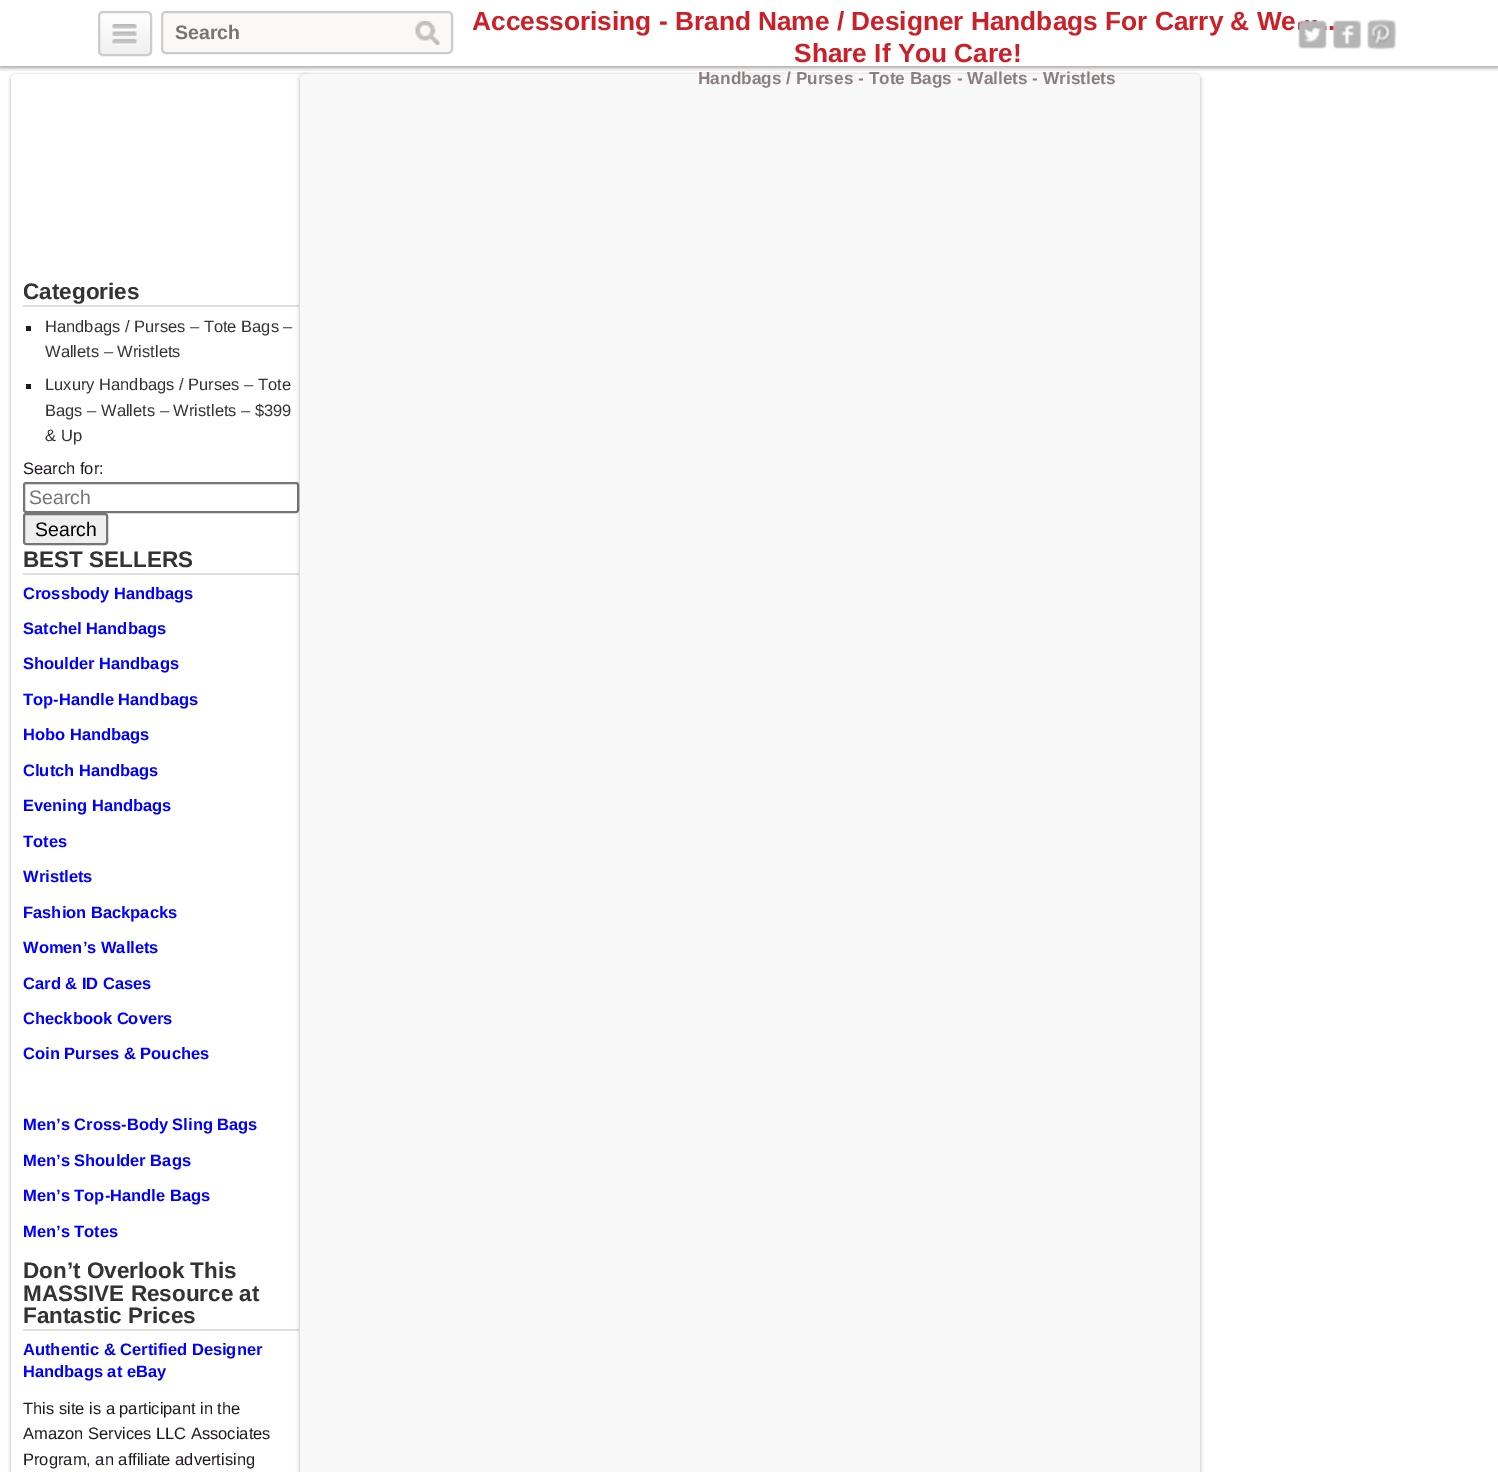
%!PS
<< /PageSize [1498 1472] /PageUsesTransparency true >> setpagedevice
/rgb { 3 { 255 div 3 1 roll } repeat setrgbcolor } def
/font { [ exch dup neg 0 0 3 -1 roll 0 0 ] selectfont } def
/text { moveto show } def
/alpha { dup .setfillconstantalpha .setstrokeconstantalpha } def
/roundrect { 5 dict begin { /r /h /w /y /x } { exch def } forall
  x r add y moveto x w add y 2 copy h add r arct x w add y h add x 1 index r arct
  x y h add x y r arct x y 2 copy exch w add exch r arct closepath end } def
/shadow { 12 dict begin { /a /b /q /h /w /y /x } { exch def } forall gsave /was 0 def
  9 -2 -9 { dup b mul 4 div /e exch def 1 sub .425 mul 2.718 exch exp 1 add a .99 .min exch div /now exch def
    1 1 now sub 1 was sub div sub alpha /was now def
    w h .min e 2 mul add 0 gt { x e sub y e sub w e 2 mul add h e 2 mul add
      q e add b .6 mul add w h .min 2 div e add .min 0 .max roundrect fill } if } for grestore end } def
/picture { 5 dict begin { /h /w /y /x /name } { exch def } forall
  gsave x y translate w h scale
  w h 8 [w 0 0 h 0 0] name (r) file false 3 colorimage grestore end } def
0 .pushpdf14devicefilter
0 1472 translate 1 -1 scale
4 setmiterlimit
255 255 255 rgb
0 0 1498 1472 rectfill
34 25 25 rgb
11 75 300 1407 5 1.5 0.4 shadow
255 255 255 rgb
11 74 300 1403 5 roundrect fill
225 223 223 rgb
23 305 276 2 rectfill
118 118 118 rgb
2 setlinewidth
24 483 274 29 2 roundrect stroke
225 223 223 rgb
23 573 276 2 rectfill
23 1329 276 2 rectfill
0 0 0 rgb
300 75 900 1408 5 2 0.33 shadow
248 248 248 rgb
300 74 900 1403 5 roundrect fill
gsave
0 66 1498 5 rectclip
34 25 25 rgb
0 2 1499 66 0 2 0.4 shadow
grestore
gsave
98 11 54 45 5 roundrect clip newpath
gsave 98 12 moveto 54 0 rlineto 0 42 rlineto -54 0 rlineto closepath clip newpath
<< /ShadingType 2 /ColorSpace /DeviceRGB /Coords [125 12 125 54] /Extend [true true] /Function << /FunctionType 2 /Domain [0 1] /C0 [1 1 1] /C1 [0.941 0.941 0.941] /N 1 >> >> shfill grestore
grestore
204 204 204 rgb
99 12 52 43 4 roundrect stroke
(img_01.rgb) 112 24 25 21 picture
250 249 247 rgb
162 12 290 41 4 roundrect gsave fill grestore
204 204 204 rgb
stroke
(img_02.rgb) 415 21 25 24 picture
(img_03.rgb) 1298 20 29 29 picture
(img_05.rgb) 1367 19 30 31 picture
33 25 34 rgb
26 326 5 5 rectfill
26 384 5 5 rectfill
239 239 239 rgb
24 514 83 30 2 roundrect gsave fill grestore
118 118 118 rgb
stroke
/LiberationSans-Bold 19.5 font
117 117 117 rgb
(Search) 175 39 text
/LiberationSans-Bold 26.25 font
203 32 39 rgb
(Accessorising - Brand Name / Designer Handbags For Carry & We) 472 30 text
(.) 1328 30 text
(Share If You Care!) 794 62 text
/LiberationSans-Bold 17.25 font
140 126 126 rgb
(Handbags / Purses - Tote Bags - Wallets - Wristlets) 698 84 text
(img_04.rgb) 1332 20 30 29 picture
/LiberationSans-Bold 22.5 font
51 51 51 rgb
(Categories) 23 299 text
/LiberationSans-Regular 16.5 font
(Handbags / Purses – Tote Bags –) 45 332 text
(Wallets – Wristlets) 45 357 text
(Luxury Handbags / Purses – Tote) 45 390 text
(Bags – Wallets – Wristlets – $399) 45 416 text
(& Up) 45 441 text
33 25 34 rgb
(Search for:) 23 474 text
/LiberationSans-Regular 19.5 font
117 117 117 rgb
(Search) 29 504 text
0 0 0 rgb
(Search) 35 536 text
/LiberationSans-Bold 22.5 font
51 51 51 rgb
(BEST SELLERS) 23 567 text
/LiberationSans-Bold 16.5 font
0 0 255 rgb
(Crossbody Handbags) 23 599 text
(Satchel Handbags) 23 634 text
(Shoulder Handbags) 23 669 text
(Top-Handle Handbags) 23 705 text
(Hobo Handbags) 23 740 text
(Clutch Handbags) 23 776 text
(Evening Handbags) 23 811 text
(Totes) 23 847 text
(Wristlets) 23 882 text
(Fashion Backpacks) 23 918 text
(Women’s Wallets) 23 953 text
(Card & ID Cases) 23 989 text
(Checkbook Covers) 23 1024 text
(Coin Purses & Pouches) 23 1059 text
(Men’s Cross-Body Sling Bags) 23 1130 text
(Men’s Shoulder Bags) 23 1166 text
(Men’s Top-Handle Bags) 23 1201 text
(Men’s Totes) 23 1237 text
/LiberationSans-Bold 22.5 font
51 51 51 rgb
(Don’t Overlook This) 23 1278 text
(MASSIVE Resource at) 23 1301 text
(Fantastic Prices) 23 1323 text
/LiberationSans-Bold 16.5 font
0 0 255 rgb
(Authentic & Certified Designer) 23 1355 text
(Handbags at eBay) 23 1377 text
/LiberationSans-Regular 16.5 font
33 25 34 rgb
(This site is a participant in the) 23 1414 text
(Amazon Services LLC Associates) 23 1439 text
(Program, an affiliate advertising) 23 1465 text
.poppdf14devicefilter showpage
